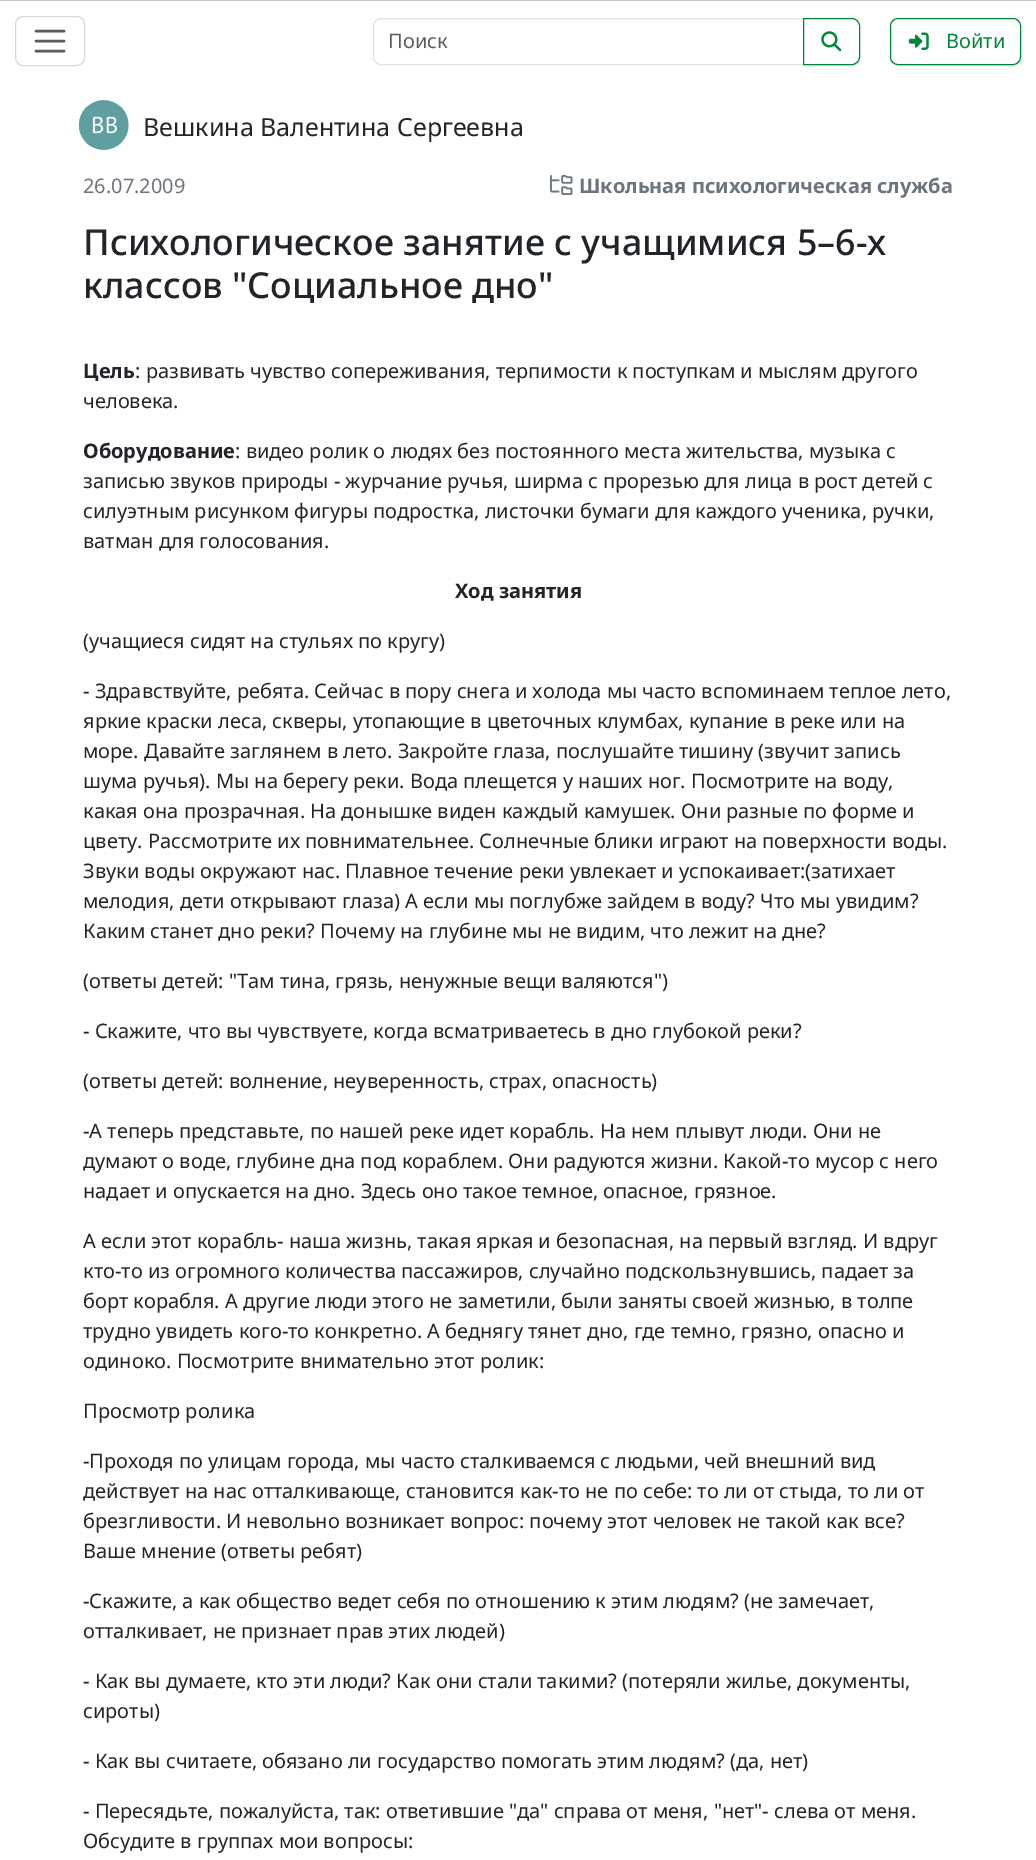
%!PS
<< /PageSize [1036 1860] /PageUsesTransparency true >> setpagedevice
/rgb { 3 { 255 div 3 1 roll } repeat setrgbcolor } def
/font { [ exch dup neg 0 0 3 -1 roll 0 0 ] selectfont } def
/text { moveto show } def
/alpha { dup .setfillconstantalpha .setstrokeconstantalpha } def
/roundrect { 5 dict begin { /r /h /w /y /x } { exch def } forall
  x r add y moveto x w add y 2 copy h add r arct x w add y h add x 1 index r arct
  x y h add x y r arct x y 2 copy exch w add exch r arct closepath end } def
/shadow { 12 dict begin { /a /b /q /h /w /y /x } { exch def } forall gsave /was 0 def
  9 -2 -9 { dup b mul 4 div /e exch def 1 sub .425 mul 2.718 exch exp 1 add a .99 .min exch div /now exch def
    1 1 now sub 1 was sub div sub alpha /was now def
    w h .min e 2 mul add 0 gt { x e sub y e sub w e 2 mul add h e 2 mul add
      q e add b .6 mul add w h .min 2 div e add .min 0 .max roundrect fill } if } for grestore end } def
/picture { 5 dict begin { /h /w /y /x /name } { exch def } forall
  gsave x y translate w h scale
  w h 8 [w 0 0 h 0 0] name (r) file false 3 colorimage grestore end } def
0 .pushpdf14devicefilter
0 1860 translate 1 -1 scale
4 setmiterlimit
255 255 255 rgb
0 0 1036 1860 rectfill
200 201 202 rgb
0 0 1036 1 rectfill
217 217 217 rgb
15.5 16.5 69 49 7.5 roundrect stroke
89 92 95 rgb
2.5 setlinewidth
1 setlinecap
36 31 moveto 28 0 rlineto 36 41 moveto 28 0 rlineto 36 51 moveto 28 0 rlineto stroke
222 226 230 rgb
1 setlinewidth
0 setlinecap
381 18.5 moveto 422.5 0 rlineto 0 46 rlineto -422.5 0 rlineto -4 0 -7.5 -3.5 -7.5 -7.5 rcurveto 0 -31 rlineto 0 -4 3.5 -7.5 7.5 -7.5 rcurveto closepath stroke
gsave
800 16 moveto 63 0 rlineto 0 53 rlineto -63 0 rlineto closepath 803 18 moveto 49 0 rlineto 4.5 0 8 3.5 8 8 rcurveto 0 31 rlineto 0 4.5 -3.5 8 -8 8 rcurveto -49 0 rlineto closepath eoclip newpath
0 0 0 rgb
803 19 57 47 8 0.5 0.07 shadow
grestore
0 135 56 rgb
803.5 18.5 moveto 48.5 0 rlineto 4 0 7.5 3.5 7.5 7.5 rcurveto 0 31 rlineto 0 4 -3.5 7.5 -7.5 7.5 rcurveto -48.5 0 rlineto closepath stroke
(img_01.rgb) 821 31 21 21 picture
gsave
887 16 moveto 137 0 rlineto 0 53 rlineto -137 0 rlineto closepath 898 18 moveto 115 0 rlineto 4.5 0 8 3.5 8 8 rcurveto 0 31 rlineto 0 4.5 -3.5 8 -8 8 rcurveto -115 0 rlineto -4.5 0 -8 -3.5 -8 -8 rcurveto 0 -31 rlineto 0 -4.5 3.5 -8 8 -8 rcurveto closepath eoclip newpath
0 0 0 rgb
890 19 131 47 8 0.5 0.07 shadow
grestore
890.5 18.5 130 46 7.5 roundrect stroke
(img_02.rgb) 908 32 21 18 picture
(img_03.rgb) 78 100 51 50 picture
(img_04.rgb) 550 175 23 20 picture
/NotoSans-Regular 20 font
89 92 95 rgb
(Поиск) 388 48 text
0 135 56 rgb
(Войти) 946 48 text
/NotoSans-Regular 25 font
33 37 41 rgb
(Вешкина Валентина Сергеевна) 143 136 text
/NotoSans-Regular 20 font
108 117 125 rgb
(26.07.2009) 83 193 text
/NotoSans-Bold 20 font
(Школьная психологическая служба) 579 193 text
/NotoSans-Medium 35.8 font
33 37 41 rgb
(Психологическое занятие с учащимися 5–6-х) 83 255 text
(классов "Социальное дно") 83 298 text
/NotoSans-Bold 20 font
(Цель) 83 378 text
/NotoSans-Regular 20 font
(: развивать чувство сопереживания, терпимости к поступкам и мыслям другого) 135 378 text
(человека.) 83 408 text
/NotoSans-Bold 20 font
(Оборудование) 83 458 text
/NotoSans-Regular 20 font
(: видео ролик о людях без постоянного места жительства, музыка с) 235 458 text
(записью звуков природы - журчание ручья, ширма с прорезью для лица в рост детей с) 83 488 text
(силуэтным рисунком фигуры подростка, листочки бумаги для каждого ученика, ручки,) 83 518 text
(ватман для голосования.) 83 548 text
/NotoSans-Bold 20 font
(Ход занятия) 455 598 text
/NotoSans-Regular 20 font
(\(учащиеся сидят на стульях по кругу\)) 83 648 text
(- Здравствуйте, ребята. Сейчас в пору снега и холода мы часто вспоминаем теплое лето,) 83 698 text
(яркие краски леса, скверы, утопающие в цветочных клумбах, купание в реке или на) 83 728 text
(море. Давайте заглянем в лето. Закройте глаза, послушайте тишину \(звучит запись) 83 758 text
(шума ручья\). Мы на берегу реки. Вода плещется у наших ног. Посмотрите на воду,) 83 788 text
(какая она прозрачная. На донышке виден каждый камушек. Они разные по форме и) 83 818 text
(цвету. Рассмотрите их повнимательнее. Солнечные блики играют на поверхности воды.) 83 848 text
(Звуки воды окружают нас. Плавное течение реки увлекает и успокаивает:\(затихает) 83 878 text
(мелодия, дети открывают глаза\) А если мы поглубже зайдем в воду? Что мы увидим?) 83 908 text
(Каким станет дно реки? Почему на глубине мы не видим, что лежит на дне?) 83 938 text
(\(ответы детей: "Там тина, грязь, ненужные вещи валяются"\)) 83 988 text
(- Скажите, что вы чувствуете, когда всматриваетесь в дно глубокой реки?) 83 1038 text
(\(ответы детей: волнение, неуверенность, страх, опасность\)) 83 1088 text
(-А теперь представьте, по нашей реке идет корабль. На нем плывут люди. Они не) 83 1138 text
(думают о воде, глубине дна под кораблем. Они радуются жизни. Какой-то мусор с него) 83 1168 text
(надает и опускается на дно. Здесь оно такое темное, опасное, грязное.) 83 1198 text
(А если этот корабль- наша жизнь, такая яркая и безопасная, на первый взгляд. И вдруг) 83 1248 text
(кто-то из огромного количества пассажиров, случайно подскользнувшись, падает за) 83 1278 text
(борт корабля. А другие люди этого не заметили, были заняты своей жизнью, в толпе) 83 1308 text
(трудно увидеть кого-то конкретно. А беднягу тянет дно, где темно, грязно, опасно и) 83 1338 text
(одиноко. Посмотрите внимательно этот ролик:) 83 1368 text
(Просмотр ролика) 83 1418 text
(-Проходя по улицам города, мы часто сталкиваемся с людьми, чей внешний вид) 83 1468 text
(действует на нас отталкивающе, становится как-то не по себе: то ли от стыда, то ли от) 83 1498 text
(брезгливости. И невольно возникает вопрос: почему этот человек не такой как все?) 83 1528 text
(Ваше мнение \(ответы ребят\)) 83 1558 text
(-Скажите, а как общество ведет себя по отношению к этим людям? \(не замечает,) 83 1608 text
(отталкивает, не признает прав этих людей\)) 83 1638 text
(- Как вы думаете, кто эти люди? Как они стали такими? \(потеряли жилье, документы,) 83 1688 text
(сироты\)) 83 1718 text
(- Как вы считаете, обязано ли государство помогать этим людям? \(да, нет\)) 83 1768 text
(- Пересядьте, пожалуйста, так: ответившие "да" справа от меня, "нет"- слева от меня.) 83 1818 text
(Обсудите в группах мои вопросы:) 83 1848 text
.poppdf14devicefilter showpage
